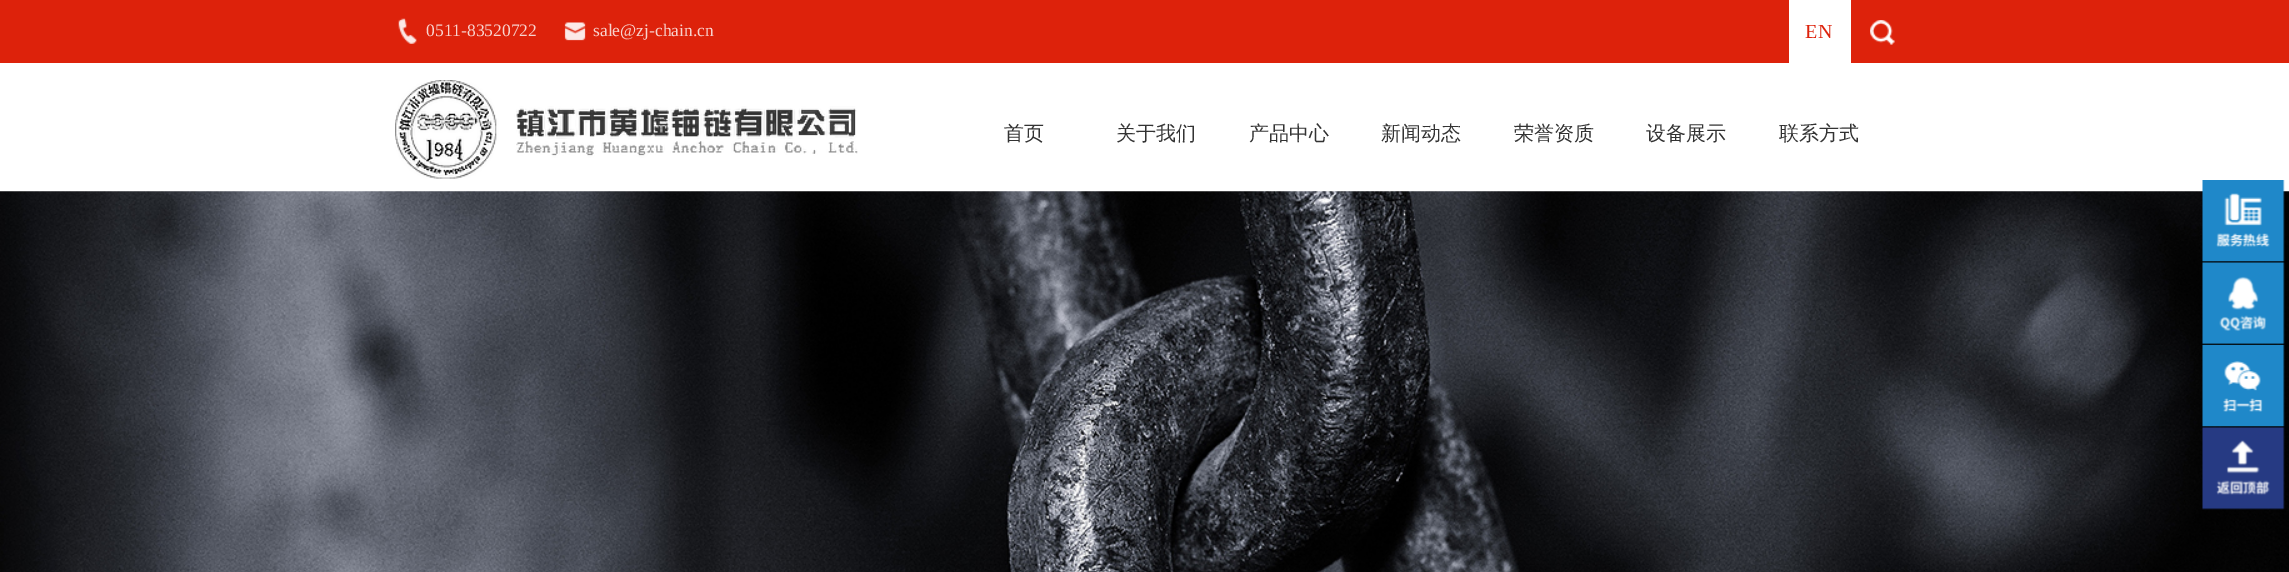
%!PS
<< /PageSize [2289 572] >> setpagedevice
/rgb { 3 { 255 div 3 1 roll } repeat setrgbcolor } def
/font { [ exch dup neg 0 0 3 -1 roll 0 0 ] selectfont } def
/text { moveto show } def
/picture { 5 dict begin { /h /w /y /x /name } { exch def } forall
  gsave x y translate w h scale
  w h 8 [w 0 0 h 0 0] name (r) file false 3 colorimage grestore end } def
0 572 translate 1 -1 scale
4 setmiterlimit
255 255 255 rgb
0 0 2289 572 rectfill
221 34 11 rgb
0 0 2289 63 rectfill
(img_01.rgb) 398 18 19 26 picture
(img_02.rgb) 564 22 22 19 picture
255 255 255 rgb
1789 0 62 63 rectfill
(img_03.rgb) 1870 20 25 25 picture
(img_04.rgb) 395 80 463 99 picture
(img_09.rgb) 0 191 2289 381 picture
(img_05.rgb) 2202 180 83 82 picture
(img_06.rgb) 2202 262 83 83 picture
(img_07.rgb) 2202 345 83 82 picture
(img_08.rgb) 2202 427 83 83 picture
/LiberationSerif-Regular 17.5 font
248 211 206 rgb
(0511-83520722) 426 36 text
(sale@zj-chain.cn) 593 36 text
/LiberationSerif-Regular 20 font
221 34 11 rgb
1805 38 moveto 1 0 (EN) ashow
/WenQuanYiZenHei-Medium 20 font
51 51 51 rgb
(首页) 1004 140 text
(关于我们) 1116 140 text
(产品中心) 1249 140 text
(新闻动态) 1381 140 text
(荣誉资质) 1514 140 text
(设备展示) 1646 140 text
(联系方式) 1779 140 text
showpage
